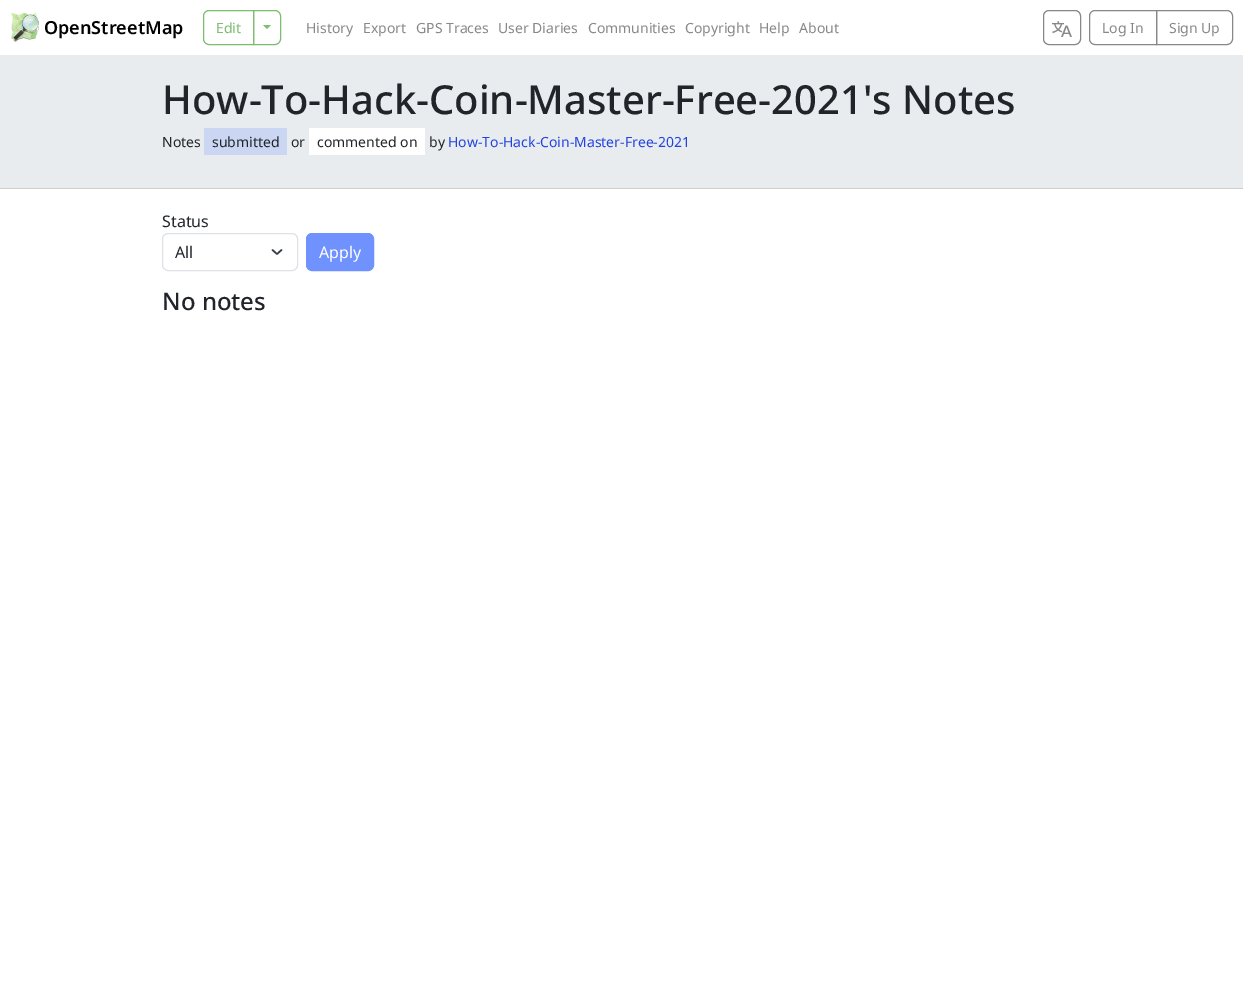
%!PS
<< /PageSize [1243 986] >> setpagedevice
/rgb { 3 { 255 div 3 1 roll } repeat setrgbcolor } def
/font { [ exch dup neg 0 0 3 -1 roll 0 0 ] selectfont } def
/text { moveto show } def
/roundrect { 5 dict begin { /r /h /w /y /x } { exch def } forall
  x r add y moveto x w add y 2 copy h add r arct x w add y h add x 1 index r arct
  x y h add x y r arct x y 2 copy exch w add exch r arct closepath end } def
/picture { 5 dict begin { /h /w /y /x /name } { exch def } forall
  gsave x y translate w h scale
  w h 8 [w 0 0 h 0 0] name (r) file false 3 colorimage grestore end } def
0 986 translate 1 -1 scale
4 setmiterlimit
255 255 255 rgb
0 0 1243 986 rectfill
(img_01.rgb) 11 13 28 29 picture
126 188 111 rgb
209 10.5 moveto 44.5 0 rlineto 0 34 rlineto -44.5 0 rlineto -3 0 -5.5 -2.5 -5.5 -5.5 rcurveto 0 -23 rlineto 0 -3 2.5 -5.5 5.5 -5.5 rcurveto closepath stroke
253.5 10.5 moveto 21.5 0 rlineto 3 0 5.5 2.5 5.5 5.5 rcurveto 0 23 rlineto 0 3 -2.5 5.5 -5.5 5.5 rcurveto -21.5 0 rlineto closepath stroke
263 25 moveto 8 0 rlineto -4 4 rlineto closepath fill
136 136 136 rgb
1043.5 10.5 37 34 5.5 roundrect stroke
(img_02.rgb) 1052 21 20 16 picture
1095 10.5 moveto 61.5 0 rlineto 0 34 rlineto -61.5 0 rlineto -3 0 -5.5 -2.5 -5.5 -5.5 rcurveto 0 -23 rlineto 0 -3 2.5 -5.5 5.5 -5.5 rcurveto closepath stroke
1156.5 10.5 moveto 70.5 0 rlineto 3 0 5.5 2.5 5.5 5.5 rcurveto 0 23 rlineto 0 3 -2.5 5.5 -5.5 5.5 rcurveto -70.5 0 rlineto closepath stroke
233 236 239 rgb
0 55 1243 133 rectfill
207 207 207 rgb
0 188 1243 1 rectfill
203 214 243 rgb
204 128 83 27 rectfill
255 255 255 rgb
309 128 116 27 rectfill
52 58 64 rgb
1.5 setlinewidth
1 setlinecap
1 setlinejoin
272.5 250 moveto 4.5 4 rlineto 4.5 -4 rlineto stroke
222 226 230 rgb
1 setlinewidth
0 setlinecap
0 setlinejoin
162.5 233.5 135 37 5.5 roundrect stroke
112 146 255 rgb
306.5 233.5 67 37 5.5 roundrect gsave fill grestore
stroke
/NotoSans-SemiBold 18 font
0 0 0 rgb
(OpenStreetMap) 44 34 text
/NotoSans-Regular 14 font
126 188 111 rgb
(Edit) 216 33 text
136 136 136 rgb
(History) 306 33 text
(Export) 363 33 text
(GPS Traces) 416 33 text
(User Diaries) 498 33 text
(Communities) 588 33 text
(Copyright) 685 33 text
(Help) 759 33 text
(About) 799 33 text
(Log In) 1102 33 text
(Sign Up) 1169 33 text
/NotoSans-Medium 40 font
33 37 41 rgb
(How-To-Hack-Coin-Master-Free-2021's Notes) 162 114 text
/NotoSans-Regular 14 font
(Notes) 162 147 text
(submitted) 212 147 text
(or) 291 147 text
(commented on) 317 147 text
(by) 429 147 text
34 68 221 rgb
(How-To-Hack-Coin-Master-Free-2021) 448 147 text
/NotoSans-Regular 16 font
33 37 41 rgb
(Status) 162 227 text
(All) 175 258 text
255 255 255 rgb
(Apply) 319 258 text
/NotoSans-Medium 24 font
33 37 41 rgb
(No notes) 162 310 text
showpage
